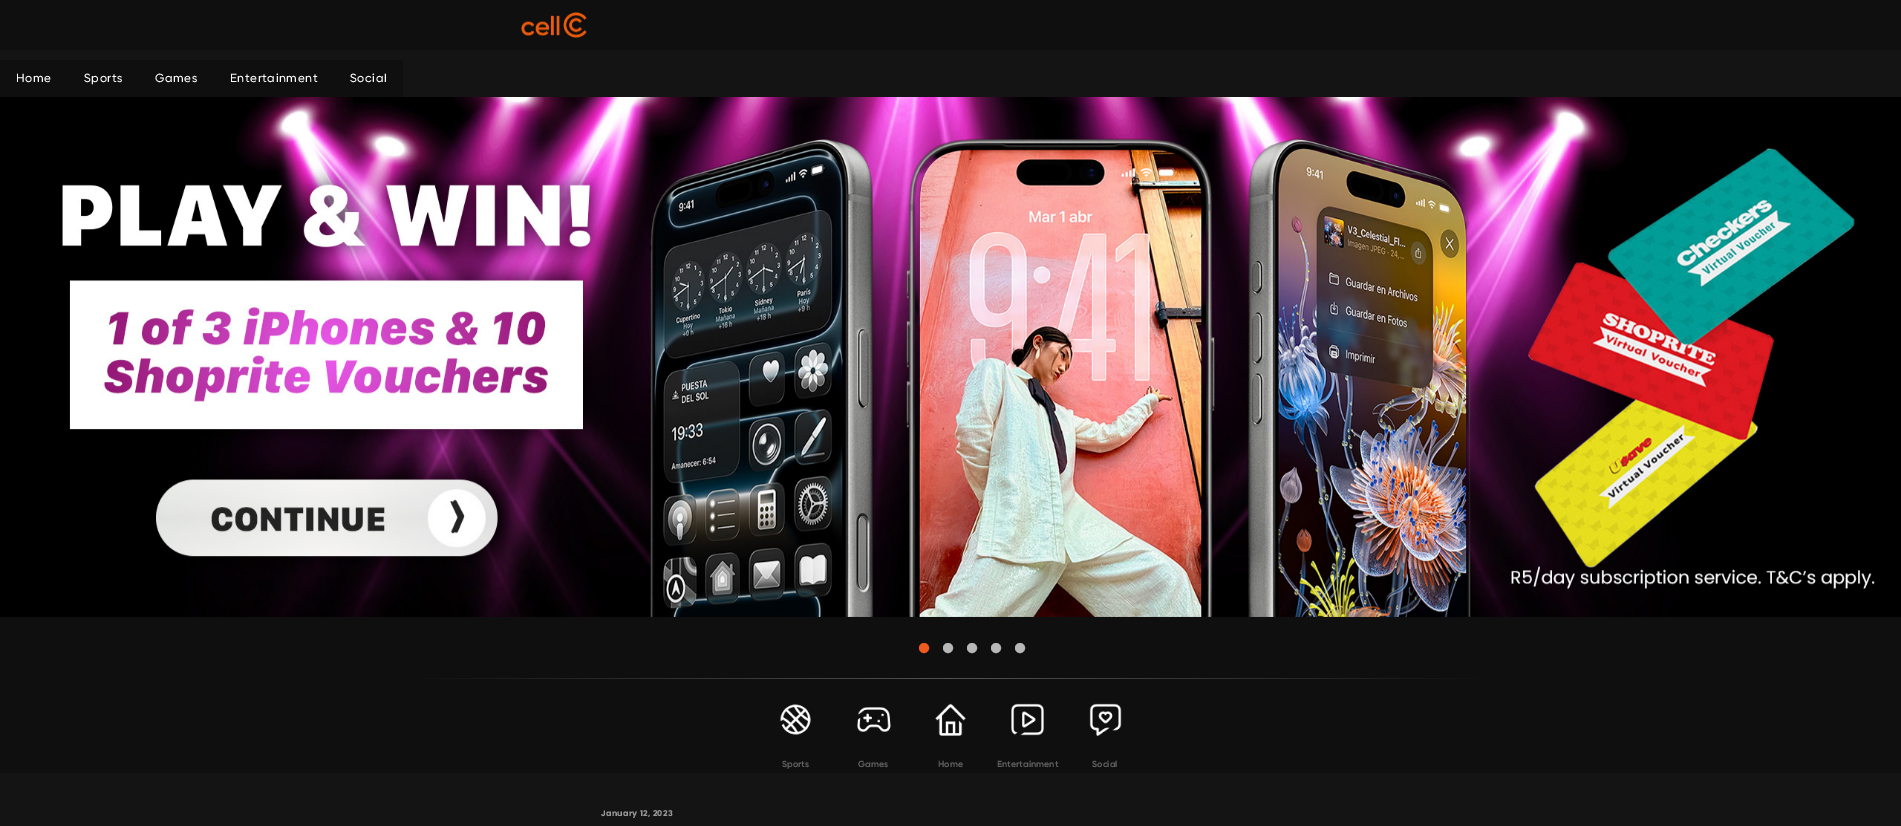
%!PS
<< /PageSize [1901 826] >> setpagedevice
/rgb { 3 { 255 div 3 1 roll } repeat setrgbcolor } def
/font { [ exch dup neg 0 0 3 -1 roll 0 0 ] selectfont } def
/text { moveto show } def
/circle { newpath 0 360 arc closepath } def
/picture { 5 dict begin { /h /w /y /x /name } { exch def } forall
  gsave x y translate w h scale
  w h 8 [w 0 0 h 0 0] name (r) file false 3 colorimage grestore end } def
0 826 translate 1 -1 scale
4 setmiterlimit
20 20 20 rgb
0 0 1901 826 rectfill
15 15 15 rgb
0 0 1901 50 rectfill
(img_01.rgb) 521 12 66 26 picture
0 60 403 37 rectfill
0 616 1901 157 rectfill
(img_02.rgb) 0 97 1901 520 picture
240 90 30 rgb
924 648 4 circle gsave fill grestore
2 setlinewidth
stroke
184 183 183 rgb
948 648 4 circle gsave fill grestore
stroke
972 648 4 circle gsave fill grestore
stroke
996 648 4 circle gsave fill grestore
stroke
1020 648 4 circle gsave fill grestore
stroke
gsave 422 678 moveto 1059 0 rlineto 0 1 rlineto -1059 0 rlineto closepath clip newpath
<< /ShadingType 2 /ColorSpace /DeviceRGB /Coords [401 679 1501 679] /Extend [true true] /Function << /FunctionType 3 /Domain [0 1] /Functions [<< /FunctionType 2 /Domain [0 1] /C0 [0.059 0.059 0.059] /C1 [0.322 0.322 0.322] /N 1 >> << /FunctionType 2 /Domain [0 1] /C0 [0.322 0.322 0.322] /C1 [0.059 0.059 0.059] /N 1 >>] /Bounds [0.5] /Encode [0 1 0 1] >> >> shfill grestore
(img_03.rgb) 780 704 31 31 picture
(img_04.rgb) 857 707 34 25 picture
(img_05.rgb) 935 703 31 33 picture
(img_06.rgb) 1011 703 33 33 picture
(img_07.rgb) 1089 703 33 33 picture
/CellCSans-Medium 12 font
255 255 255 rgb
16 82 moveto 0.6 0 (Home) ashow
84 82 moveto 0.6 0 (Sports) ashow
155 82 moveto 0.6 0 (Games) ashow
230 82 moveto 0.6 0 (Entertainment) ashow
350 82 moveto 0.6 0 (Social) ashow
/CellCSans-Bold 9 font
96 96 96 rgb
(Sports) 782 767 text
(Games) 858 767 text
(Home) 938 767 text
(Entertainment) 997 767 text
(Social) 1092 767 text
/Poppins-Bold 8 font
153 153 153 rgb
601 816 moveto 0.3 0 (January 12, 2023) ashow
showpage
